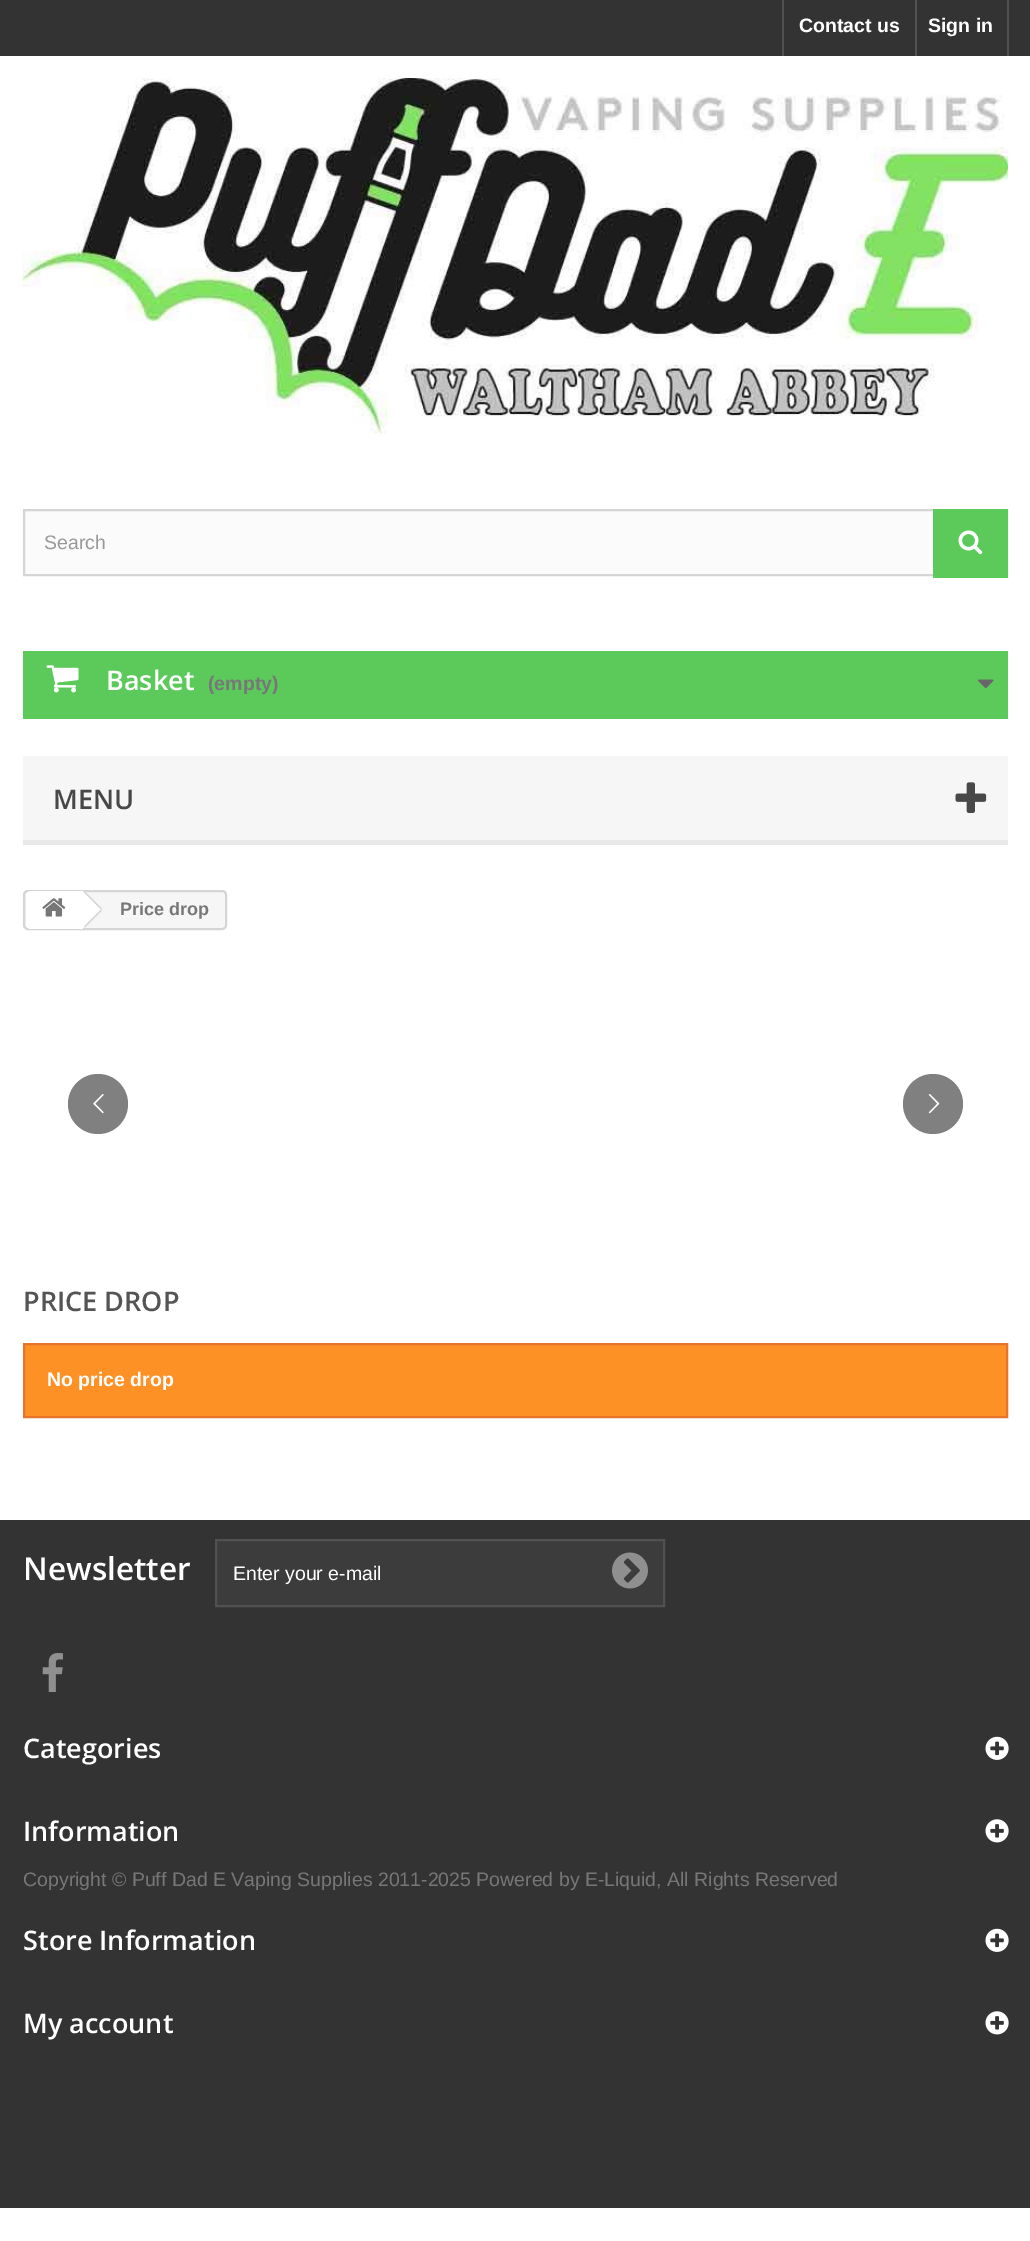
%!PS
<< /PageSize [1030 2241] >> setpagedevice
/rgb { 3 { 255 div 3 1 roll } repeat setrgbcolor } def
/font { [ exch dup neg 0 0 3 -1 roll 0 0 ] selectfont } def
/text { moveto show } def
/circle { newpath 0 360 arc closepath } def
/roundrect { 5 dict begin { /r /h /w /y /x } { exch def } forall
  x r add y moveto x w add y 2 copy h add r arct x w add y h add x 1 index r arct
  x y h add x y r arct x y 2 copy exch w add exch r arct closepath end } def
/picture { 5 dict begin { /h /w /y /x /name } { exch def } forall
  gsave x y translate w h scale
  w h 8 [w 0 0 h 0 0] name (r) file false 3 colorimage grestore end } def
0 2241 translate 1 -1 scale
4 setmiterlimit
255 255 255 rgb
0 0 1030 2241 rectfill
51 51 51 rgb
0 0 1030 56 rectfill
81 81 81 rgb
782 0 2 56 rectfill
1007 0 2 56 rectfill
915 0 2 56 rectfill
(img_01.rgb) 22 78 986 356 picture
251 251 251 rgb
25 511 908 63 rectfill
214 212 212 rgb
2 setlinewidth
24 510 983 65 rectstroke
91 202 91 rgb
933 509 75 69 rectfill
(img_02.rgb) 958 530 25 25 picture
23 651 985 68 rectfill
(img_03.rgb) 46 665 33 28 picture
(img_04.rgb) 978 679 16 10 picture
246 246 246 rgb
23 756 985 84 rectfill
233 233 233 rgb
23 840 985 5 rectfill
(img_05.rgb) 955 782 32 31 picture
246 246 246 rgb
24 891 202 38 4 roundrect gsave fill grestore
214 212 212 rgb
stroke
255 255 255 rgb
31 891 moveto 52 0 rlineto 0 38 rlineto -52 0 rlineto -3 0 -5 -2 -5 -5 rcurveto 0 -28 rlineto 0 -3 2 -5 5 -5 rcurveto closepath fill
(img_06.rgb) 42 898 24 19 picture
86 892.5 moveto 15 15 rlineto 1 1 1 3 0 4 rcurveto -15 15 rlineto -1 1 -3 1 -4 0 rcurveto -15 -15 rlineto -1 -1 -1 -3 0 -4 rcurveto 15 -15 rlineto 1 -1 3 -1 4 0 rcurveto closepath fill
214 212 212 rgb
85 891.5 moveto 17 17 rlineto -1 1 rlineto -17 -17 rlineto closepath fill
101 909.5 moveto 1 1 rlineto -17 17 rlineto -1 -1 rlineto closepath fill
128 128 128 rgb
98 1104 30 circle fill
(img_07.rgb) 93 1094 11 20 picture
933 1104 30 circle fill
(img_08.rgb) 928 1094 12 20 picture
254 145 38 rgb
24 1344 moveto 983 0 rlineto 0 73 rlineto -983 0 rlineto closepath gsave fill grestore
228 117 43 rgb
stroke
51 51 51 rgb
0 1520 1030 688 rectfill
60 60 60 rgb
216 1540 moveto 448 0 rlineto 0 66 rlineto -448 0 rlineto closepath gsave fill grestore
81 81 81 rgb
stroke
(img_09.rgb) 612 1552 36 37 picture
(img_10.rgb) 42 1653 21 39 picture
(img_11.rgb) 985 1736 24 24 picture
(img_12.rgb) 985 1819 24 24 picture
(img_11.rgb) 985 1928 24 24 picture
(img_12.rgb) 985 2011 24 24 picture
/LiberationSans-Bold 19.5 font
255 255 255 rgb
(Contact us) 799 32 text
(Sign in) 928 32 text
/LiberationSans-Regular 19.5 font
153 153 153 rgb
(Search) 44 549 text
/OpenSans-SemiBold 27 font
255 255 255 rgb
(Basket) 106 690 text
/LiberationSans-Bold 19.5 font
119 119 119 rgb
(\(empty\)) 208 690 text
/OpenSans-SemiBold 27 font
72 72 72 rgb
(MENU) 53 809 text
/LiberationSans-Bold 18 font
119 119 119 rgb
(Price drop) 120 915 text
/OpenSans-SemiBold 27 font
85 84 84 rgb
(PRICE DROP) 23 1311 text
/LiberationSans-Bold 19.5 font
255 255 255 rgb
(No price drop) 47 1386 text
/OpenSans-SemiBold 31.5 font
(Newsletter) 23 1580 text
/LiberationSans-Regular 19.5 font
(Enter your e-mail) 233 1580 text
/OpenSans-SemiBold 27 font
(Categories) 23 1758 text
(Information) 23 1841 text
/LiberationSans-Regular 19.5 font
119 119 119 rgb
(Copyright © Puff Dad E Vaping Supplies 2011-2025 Powered by E-Liquid, All Rights Reserved) 23 1886 text
/OpenSans-SemiBold 27 font
255 255 255 rgb
(Store Information) 23 1950 text
(My account) 23 2033 text
showpage
